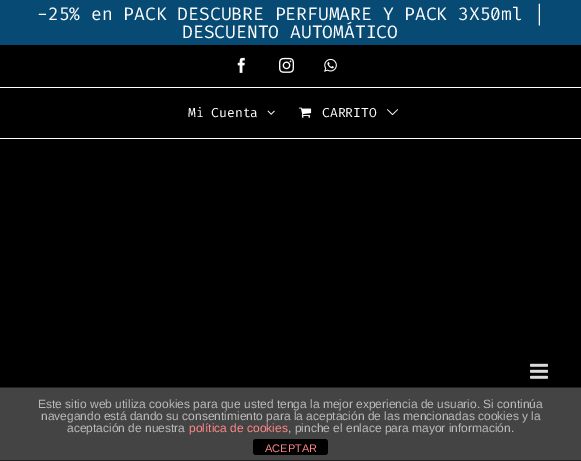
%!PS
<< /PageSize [581 461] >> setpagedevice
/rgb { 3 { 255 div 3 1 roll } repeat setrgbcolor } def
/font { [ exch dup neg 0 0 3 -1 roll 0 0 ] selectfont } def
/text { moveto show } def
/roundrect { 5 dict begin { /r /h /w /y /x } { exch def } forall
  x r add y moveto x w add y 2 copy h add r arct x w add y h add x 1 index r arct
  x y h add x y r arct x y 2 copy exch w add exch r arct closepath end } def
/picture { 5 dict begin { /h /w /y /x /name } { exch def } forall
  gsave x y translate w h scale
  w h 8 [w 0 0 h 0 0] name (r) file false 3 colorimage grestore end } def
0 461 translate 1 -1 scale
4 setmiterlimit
0 0 0 rgb
0 0 581 461 rectfill
7 74 116 rgb
0 0 581 45 rectfill
255 255 255 rgb
0 138 581 1 rectfill
0 87 581 1 rectfill
(img_01.rgb) 237 57 8 16 picture
(img_02.rgb) 279 57 15 16 picture
(img_03.rgb) 324 58 13 14 picture
(img_04.rgb) 267 110 8 5 picture
(img_05.rgb) 299 107 13 11 picture
(img_06.rgb) 387 109 11 7 picture
(img_07.rgb) 530 363 18 16 picture
68 68 68 rgb
0 388 581 72 rectfill
34 34 34 rgb
0 387 581 1 rectfill
0 460 581 1 rectfill
0 0 0 rgb
253 439 75 16 3 roundrect fill
/FiraCode-Regular 18 font
255 255 255 rgb
(-25% en PACK DESCUBRE PERFUMARE Y PACK 3X50ml |) 37 20 text
(DESCUENTO AUTOMÁTICO) 182 38 text
/FiraCode-Regular 13 font
(Mi Cuenta) 188 117 text
(CARRITO) 322 117 text
/LiberationSans-Regular 12 font
187 187 187 rgb
(Este sitio web utiliza cookies para que usted tenga la mejor experiencia de usuario. Si continúa) 38 408 text
(navegando está dando su consentimiento para la aceptación de las mencionadas cookies y la) 41 420 text
(aceptación de nuestra) 67 432 text
255 136 136 rgb
(política de cookies) 189 432 text
187 187 187 rgb
(, pinche el enlace para mayor información.) 288 432 text
/LiberationSans-Regular 11 font
255 136 136 rgb
(ACEPTAR) 265 452 text
showpage
